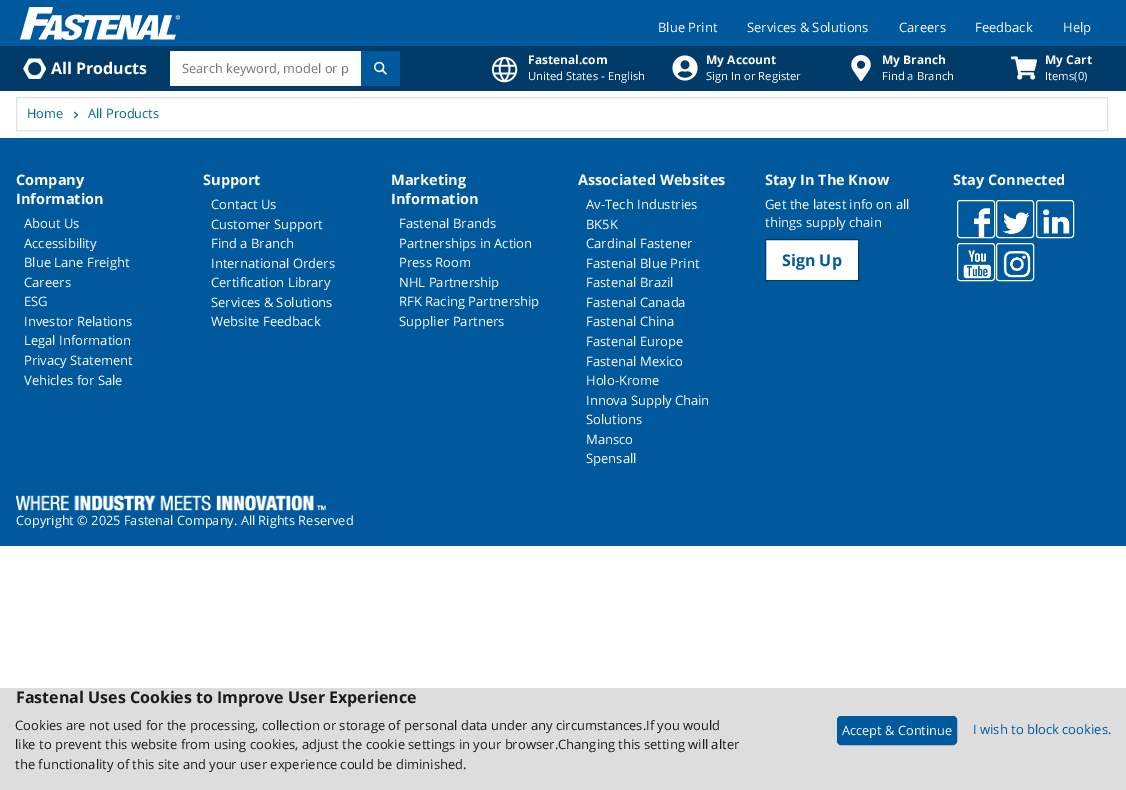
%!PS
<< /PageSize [1126 790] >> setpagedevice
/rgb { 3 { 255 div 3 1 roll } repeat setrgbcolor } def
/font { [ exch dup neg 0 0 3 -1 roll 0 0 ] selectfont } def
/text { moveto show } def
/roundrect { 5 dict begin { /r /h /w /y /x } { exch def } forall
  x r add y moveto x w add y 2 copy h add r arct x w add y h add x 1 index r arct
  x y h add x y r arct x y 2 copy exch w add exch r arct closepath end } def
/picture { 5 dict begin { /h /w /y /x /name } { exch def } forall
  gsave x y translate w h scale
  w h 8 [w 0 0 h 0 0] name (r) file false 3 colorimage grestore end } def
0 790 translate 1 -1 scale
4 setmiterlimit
255 255 255 rgb
0 0 1126 790 rectfill
0 89 156 rgb
0 0 1126 46 rectfill
(img_01.rgb) 20 7 160 33 picture
0 59 105 rgb
0 46 1126 45 rectfill
(img_02.rgb) 23 58 24 21 picture
255 255 255 rgb
170 51 191 35 rectfill
0 89 156 rgb
361 51 39 35 rectfill
(img_03.rgb) 374 61 13 14 picture
(img_04.rgb) 491 57 27 26 picture
(img_05.rgb) 672 55 26 26 picture
(img_06.rgb) 851 55 20 26 picture
(img_07.rgb) 1011 56 26 24 picture
222 226 230 rgb
16.5 97.5 1091 33 rectstroke
(img_08.rgb) 74 111 4 8 picture
0 89 156 rgb
0 138 1126 408 rectfill
255 255 255 rgb
765.5 239.5 moveto 93 0 rlineto 0 41 rlineto -93 0 rlineto closepath gsave fill grestore
0 59 105 rgb
stroke
(img_09.rgb) 974 208 16 29 picture
255 255 255 rgb
957.5 200.5 37 37 2.5 roundrect stroke
(img_10.rgb) 1003 212 27 23 picture
996.5 200.5 37 37 2.5 roundrect stroke
(img_11.rgb) 1042 209 28 25 picture
1036.5 200.5 37 37 2.5 roundrect stroke
(img_12.rgb) 963 250 28 29 picture
957.5 243.5 37 37 2.5 roundrect stroke
(img_13.rgb) 1003 251 28 27 picture
996.5 243.5 37 37 2.5 roundrect stroke
(img_14.rgb) 16 495 310 16 picture
221 221 221 rgb
0 688 1126 102 rectfill
0 89 156 rgb
837.5 716.5 119 28 3.5 roundrect gsave fill grestore
stroke
/OpenSans-Regular 13 font
255 255 255 rgb
(Blue Print) 658 32 text
(Services & Solutions) 747 32 text
(Careers) 899 32 text
(Feedback) 975 32 text
(Help) 1063 32 text
/OpenSans-Bold 16 font
(All Products) 51 74 text
/OpenSans-Regular 12.8 font
108 117 125 rgb
(Search keyword, model or p) 182 73 text
/OpenSans-Bold 12 font
255 255 255 rgb
(Fastenal.com) 528 64 text
/OpenSans-Regular 11.25 font
(United States - English) 528 80 text
/OpenSans-Bold 12 font
(My Account) 706 64 text
/OpenSans-Regular 11.25 font
(Sign In or Register) 706 80 text
/OpenSans-Bold 12 font
(My Branch) 882 64 text
/OpenSans-Regular 11.25 font
(Find a Branch) 882 80 text
/OpenSans-Bold 12 font
(My Cart) 1045 64 text
/OpenSans-Regular 11.25 font
(Items\(0\)) 1045 80 text
/OpenSans-Regular 12.8 font
0 102 153 rgb
(Home) 27 118 text
(All Products) 88 118 text
/OpenSans-Bold 14.5 font
255 255 255 rgb
(Company) 16 185 text
(Information) 16 204 text
/OpenSans-Regular 13 font
(About Us) 24 228 text
(Accessibility) 24 248 text
(Blue Lane Freight) 24 267 text
(Careers) 24 287 text
(ESG) 24 306 text
(Investor Relations) 24 326 text
(Legal Information) 24 345 text
(Privacy Statement) 24 365 text
(Vehicles for Sale) 24 385 text
/OpenSans-Bold 14.5 font
(Support) 203 185 text
/OpenSans-Regular 13 font
(Contact Us) 211 209 text
(Customer Support) 211 229 text
(Find a Branch) 211 248 text
(International Orders) 211 268 text
(Certification Library) 211 287 text
(Services & Solutions) 211 307 text
(Website Feedback) 211 326 text
/OpenSans-Bold 14.5 font
(Marketing) 391 185 text
(Information) 391 204 text
/OpenSans-Regular 13 font
(Fastenal Brands) 399 228 text
(Partnerships in Action) 399 248 text
(Press Room) 399 267 text
(NHL Partnership) 399 287 text
(RFK Racing Partnership) 399 306 text
(Supplier Partners) 399 326 text
/OpenSans-Bold 14.5 font
(Associated Websites) 578 185 text
/OpenSans-Regular 13 font
(Av-Tech Industries) 586 209 text
(BK5K) 586 229 text
(Cardinal Fastener) 586 248 text
(Fastenal Blue Print) 586 268 text
(Fastenal Brazil) 586 287 text
(Fastenal Canada) 586 307 text
(Fastenal China) 586 326 text
(Fastenal Europe) 586 346 text
(Fastenal Mexico) 586 366 text
(Holo-Krome) 586 385 text
(Innova Supply Chain) 586 405 text
(Solutions) 586 424 text
(Mansco) 586 444 text
(Spensall) 586 463 text
/OpenSans-Bold 14.5 font
(Stay In The Know) 765 185 text
/OpenSans-Regular 13 font
(Get the latest info on all) 765 209 text
(things supply chain) 765 227 text
/OpenSans-Bold 16 font
0 89 156 rgb
(Sign Up) 782 266 text
/OpenSans-Bold 14.5 font
255 255 255 rgb
(Stay Connected) 953 185 text
/OpenSans-Regular 12.8 font
(Copyright © 2025 Fastenal Company. All Rights Reserved) 16 525 text
/OpenSans-Bold 16 font
28 27 26 rgb
(Fastenal Uses Cookies to Improve User Experience) 16 703 text
/OpenSans-Regular 13 font
(Cookies are not used for the processing, collection or storage of personal data under any circumstances.If you would) 15 730 text
(like to prevent this website from using cookies, adjust the cookie settings in your browser.Changing this setting will alter) 15 749 text
(the functionality of this site and your user experience could be diminished.) 15 769 text
/OpenSans-Regular 12.8 font
255 255 255 rgb
(Accept & Continue) 842 735 text
/OpenSans-Regular 13 font
0 89 156 rgb
(I wish to block cookies.) 973 734 text
showpage
